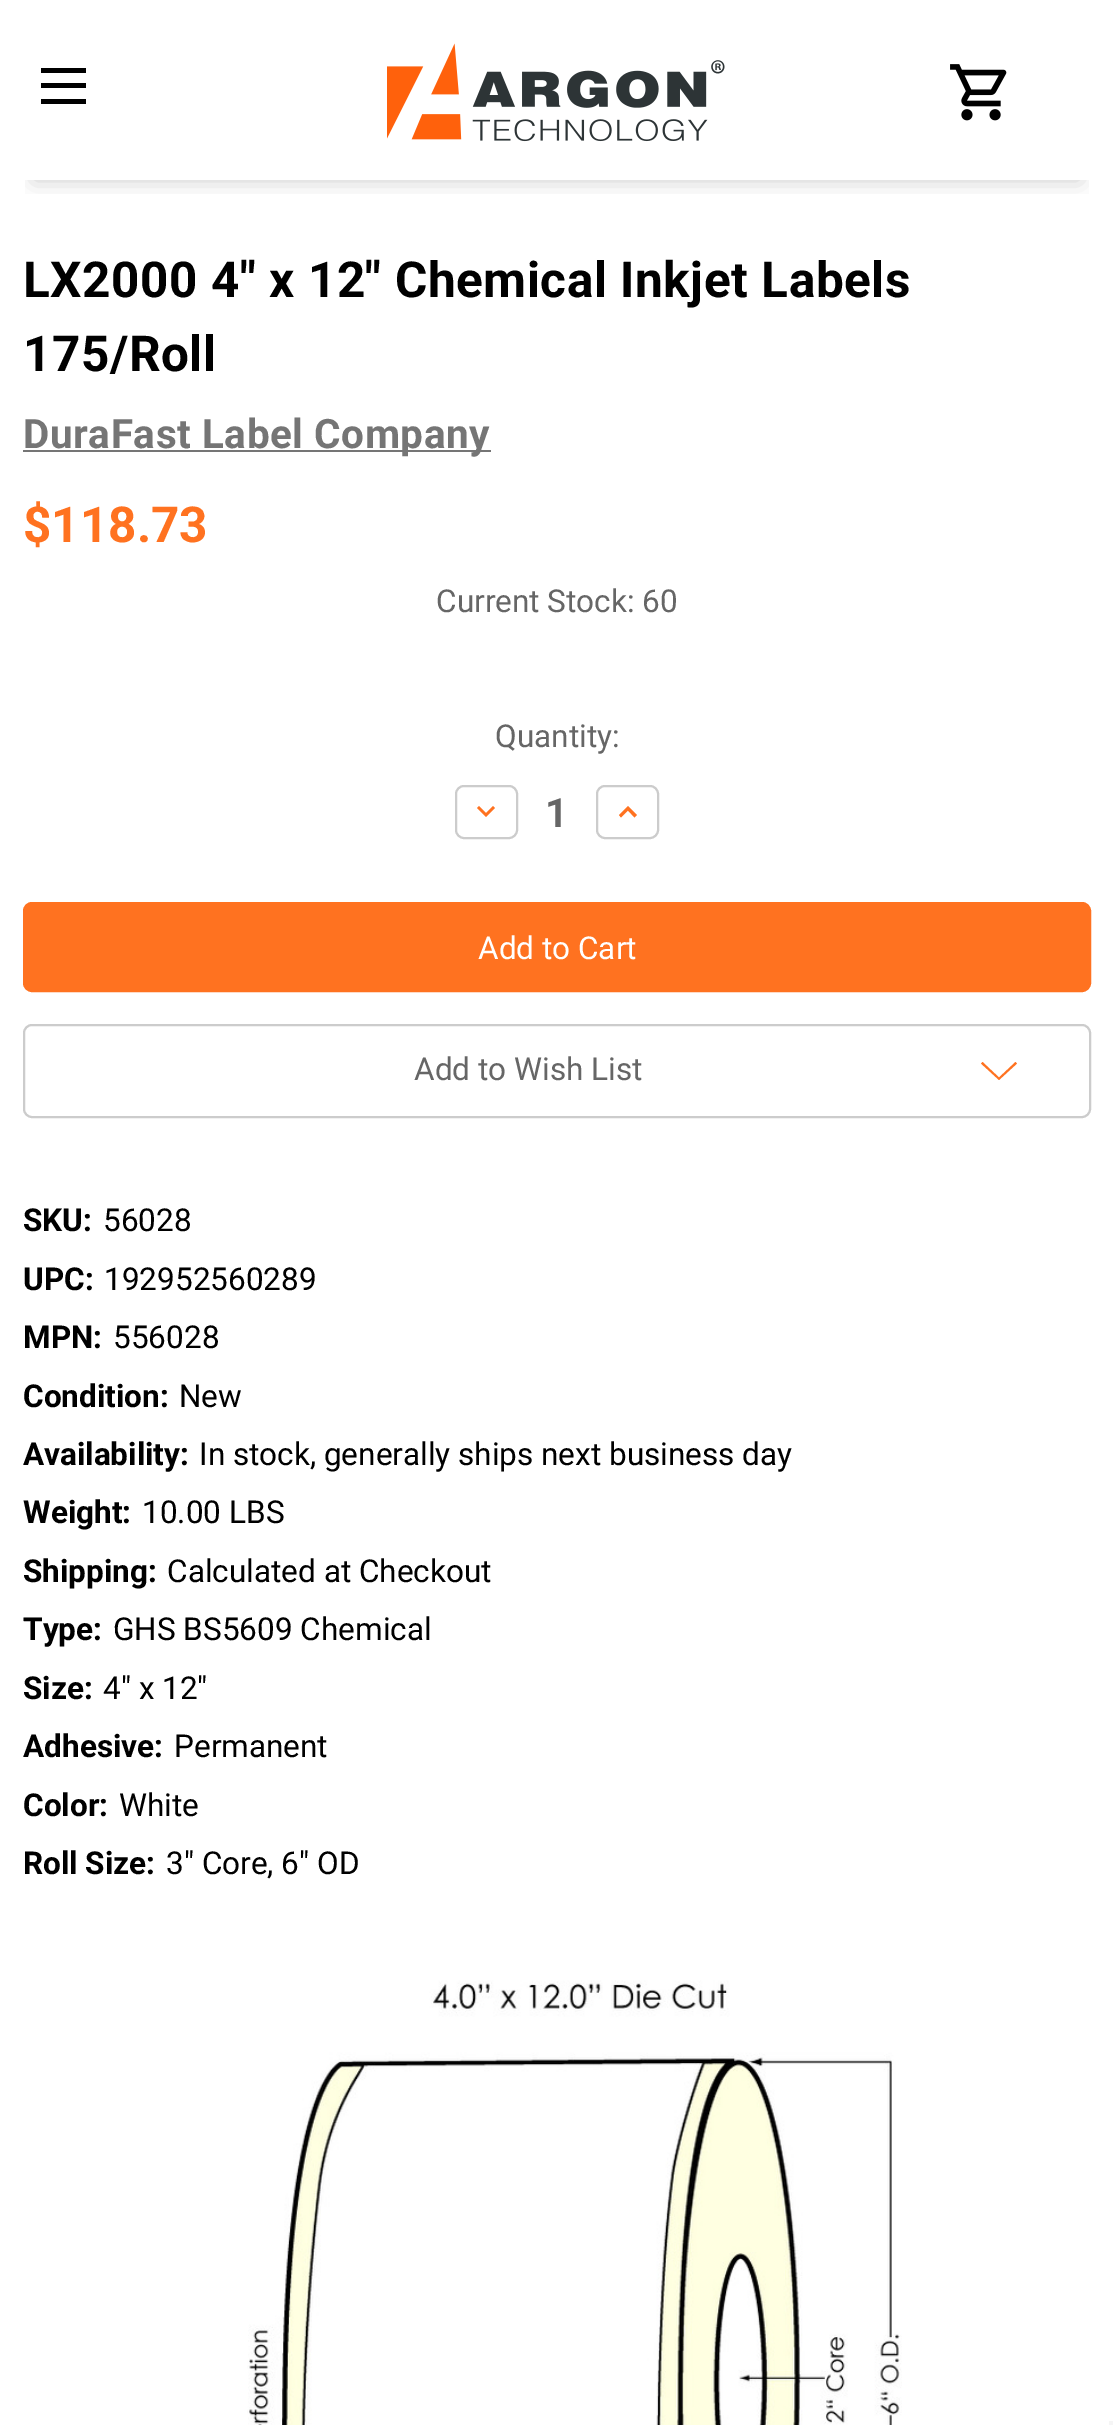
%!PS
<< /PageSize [1113 2425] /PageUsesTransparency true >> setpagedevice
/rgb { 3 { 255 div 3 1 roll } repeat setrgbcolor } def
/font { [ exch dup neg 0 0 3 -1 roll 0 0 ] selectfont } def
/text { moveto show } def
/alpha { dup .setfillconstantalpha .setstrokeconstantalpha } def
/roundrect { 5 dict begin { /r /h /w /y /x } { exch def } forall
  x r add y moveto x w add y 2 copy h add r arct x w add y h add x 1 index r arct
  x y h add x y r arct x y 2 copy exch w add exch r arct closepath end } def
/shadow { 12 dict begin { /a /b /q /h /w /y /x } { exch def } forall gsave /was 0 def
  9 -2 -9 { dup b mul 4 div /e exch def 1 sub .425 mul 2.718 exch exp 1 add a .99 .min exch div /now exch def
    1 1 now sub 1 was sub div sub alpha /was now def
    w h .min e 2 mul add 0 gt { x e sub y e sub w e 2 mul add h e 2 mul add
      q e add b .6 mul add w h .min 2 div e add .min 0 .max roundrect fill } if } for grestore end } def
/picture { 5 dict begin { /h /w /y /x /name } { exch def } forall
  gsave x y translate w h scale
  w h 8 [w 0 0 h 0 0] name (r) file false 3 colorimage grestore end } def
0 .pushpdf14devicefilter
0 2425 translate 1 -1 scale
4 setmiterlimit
255 255 255 rgb
0 0 1113 2425 rectfill
gsave
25 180 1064 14 rectclip
0 0 0 rgb
34 68 1046 112 0 11 0.2 shadow
grestore
0 0 0 rgb
41 83 45 5 rectfill
41 68 45 5 rectfill
41 99 45 5 rectfill
(img_01.rgb) 387 43 338 99 picture
(img_02.rgb) 950 64 57 57 picture
117 117 117 rgb
23 450 468 2 rectfill
204 204 204 rgb
2 setlinewidth
456 786 61 52 8 roundrect stroke
255 114 32 rgb
479 806 moveto 7 7 rlineto 7 -7 rlineto 2 2 rlineto -9 9 rlineto -9 -9 rlineto closepath fill
204 204 204 rgb
597 786 61 52 8 roundrect stroke
255 114 32 rgb
621 817.5 moveto 7 -7 rlineto 6.5 7 rlineto 2.5 -2.5 rlineto -9 -9 rlineto -9 9 rlineto closepath fill
24 903 1066 88 8 roundrect gsave fill grestore
stroke
204 204 204 rgb
24 1025 1066 92 8 roundrect stroke
255 114 32 rgb
999 1077.5 moveto 16.5 -15.5 rlineto 1.5 1.5 rlineto -18 16.5 rlineto -18 -16.5 rlineto 1.5 -1.5 rlineto closepath eofill
(img_03.rgb) 247 1980 655 445 picture
245 245 245 rgb
1109 2421 4 4 rectfill
/Roboto-Bold 49.5 font
0 0 0 rgb
23 297 moveto 0.55 0 (LX2000 4" x 12" Chemical Inkjet Labels) ashow
23 371 moveto 0.55 0 (175/Roll) ashow
/Roboto-Bold 40.5 font
117 117 117 rgb
23 448 moveto 0.55 0 (DuraFast Label Company) ashow
/Roboto-Bold 49.5 font
255 114 32 rgb
($118.73) 23 542 text
/Roboto-Regular 31.5 font
102 102 102 rgb
(Current Stock: 60) 436 612 text
(Quantity:) 495 747 text
/Roboto-Bold 40.5 font
(1) 545 827 text
/Roboto-Regular 31.5 font
255 255 255 rgb
(Add to Cart) 478 959 text
102 102 102 rgb
(Add to Wish List) 414 1080 text
/Roboto-Bold 31.5 font
0 0 0 rgb
(SKU:) 23 1231 text
/Roboto-Regular 31.5 font
(56028) 103 1231 text
/Roboto-Bold 31.5 font
(UPC:) 23 1290 text
/Roboto-Regular 31.5 font
(192952560289) 104 1290 text
/Roboto-Bold 31.5 font
(MPN:) 23 1348 text
/Roboto-Regular 31.5 font
(556028) 113 1348 text
/Roboto-Bold 31.5 font
(Condition:) 23 1407 text
/Roboto-Regular 31.5 font
(New) 179 1407 text
/Roboto-Bold 31.5 font
(Availability:) 23 1465 text
/Roboto-Regular 31.5 font
(In stock, generally ships next business day) 199 1465 text
/Roboto-Bold 31.5 font
(Weight:) 23 1523 text
/Roboto-Regular 31.5 font
(10.00 LBS) 142 1523 text
/Roboto-Bold 31.5 font
(Shipping:) 23 1582 text
/Roboto-Regular 31.5 font
(Calculated at Checkout) 167 1582 text
/Roboto-Bold 31.5 font
(Type:) 23 1640 text
/Roboto-Regular 31.5 font
(GHS BS5609 Chemical) 113 1640 text
/Roboto-Bold 31.5 font
(Size:) 23 1699 text
/Roboto-Regular 31.5 font
(4" x 12") 103 1699 text
/Roboto-Bold 31.5 font
(Adhesive:) 23 1757 text
/Roboto-Regular 31.5 font
(Permanent) 174 1757 text
/Roboto-Bold 31.5 font
(Color:) 23 1816 text
/Roboto-Regular 31.5 font
(White) 119 1816 text
/Roboto-Bold 31.5 font
(Roll Size:) 23 1874 text
/Roboto-Regular 31.5 font
(3" Core, 6" OD) 166 1874 text
.poppdf14devicefilter showpage
